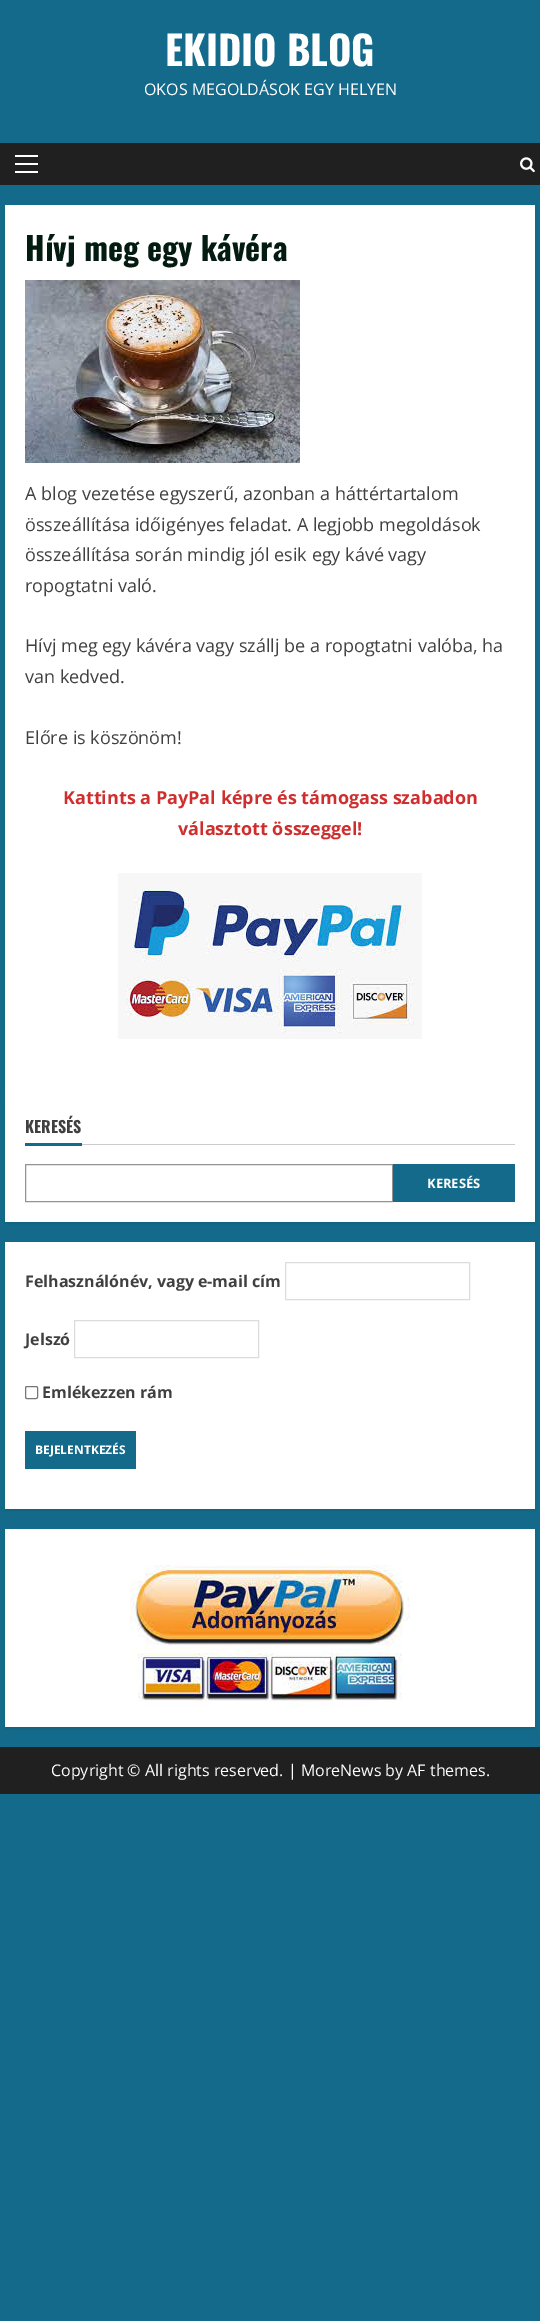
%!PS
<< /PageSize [540 2321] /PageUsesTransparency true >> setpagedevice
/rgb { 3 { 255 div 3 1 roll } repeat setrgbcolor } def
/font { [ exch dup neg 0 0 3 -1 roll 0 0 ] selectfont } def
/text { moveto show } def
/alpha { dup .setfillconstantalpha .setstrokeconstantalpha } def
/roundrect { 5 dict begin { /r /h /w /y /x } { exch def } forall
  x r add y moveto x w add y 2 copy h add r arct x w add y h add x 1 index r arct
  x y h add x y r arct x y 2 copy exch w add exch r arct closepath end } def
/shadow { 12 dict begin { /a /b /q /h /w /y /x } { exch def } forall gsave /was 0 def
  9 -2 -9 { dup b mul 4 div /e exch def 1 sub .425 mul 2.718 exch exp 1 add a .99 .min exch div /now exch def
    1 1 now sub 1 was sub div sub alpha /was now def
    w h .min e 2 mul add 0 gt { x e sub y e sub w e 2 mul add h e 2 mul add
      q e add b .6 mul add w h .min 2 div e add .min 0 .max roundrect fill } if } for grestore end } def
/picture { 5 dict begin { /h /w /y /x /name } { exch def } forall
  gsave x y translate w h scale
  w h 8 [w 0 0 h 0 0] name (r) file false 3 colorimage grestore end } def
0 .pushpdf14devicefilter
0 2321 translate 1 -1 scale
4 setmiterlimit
19 106 139 rgb
0 0 540 2321 rectfill
32 32 32 rgb
0 143 540 42 rectfill
255 255 255 rgb
15 163 23 2 rectfill
15 155 23 2 rectfill
15 171 23 2 rectfill
(img_01.rgb) 520 157 15 16 picture
0 0 0 rgb
5 207 530 889 0 1 0.08 shadow
255 255 255 rgb
5 205 530 889 rectfill
(img_02.rgb) 25 280 275 183 picture
(img_03.rgb) 118 873 304 166 picture
0 0 0 rgb
5 1096 530 128 0 1 0.08 shadow
255 255 255 rgb
5 1094 530 128 rectfill
19 106 139 rgb
25 1143 57 3 rectfill
204 204 204 rgb
82 1144 433 1 rectfill
148 148 148 rgb
25.5 1164.5 367 37 rectstroke
19 106 139 rgb
393 1164 122 38 rectfill
0 0 0 rgb
5 1244 530 267 0 1 0.08 shadow
255 255 255 rgb
5 1242 530 267 rectfill
220 220 220 rgb
285.5 1262.5 184 37 rectstroke
74.5 1320.5 184 37 rectstroke
118 118 118 rgb
25.5 1386.5 12 12 1.5 roundrect stroke
19 106 139 rgb
25 1431 111 38 rectfill
0 0 0 rgb
5 1531 530 198 0 1 0.08 shadow
255 255 255 rgb
5 1529 530 198 rectfill
(img_04.rgb) 130 1565 280 142 picture
32 32 32 rgb
0 1747 540 47 rectfill
/Oswald-Bold 40 font
255 255 255 rgb
(EKIDIO BLOG) 165 66 text
/OpenSans-Regular 16 font
(OKOS MEGOLDÁSOK EGY HELYEN) 144 95 text
/Oswald-Bold 32 font
3 27 17 rgb
(Hívj meg egy kávéra) 25 261 text
/OpenSans-Regular 18 font
64 64 64 rgb
(A blog vezetése egyszerű, azonban a háttértartalom) 25 500 text
(összeállítása időigényes feladat. A legjobb megoldások) 25 531 text
(összeállítása során mindig jól esik egy kávé vagy) 25 561 text
(ropogtatni való.) 25 592 text
(Hívj meg egy kávéra vagy szállj be a ropogtatni valóba, ha) 25 652 text
(van kedved.) 25 683 text
(Előre is köszönöm!) 25 744 text
/OpenSans-Bold 18 font
207 46 46 rgb
(Kattints a PayPal képre és támogass szabadon) 63 804 text
(választott összeggel!) 178 835 text
/Oswald-Bold 16 font
64 64 64 rgb
(KERESÉS) 25 1133 text
/OpenSans-Bold 13 font
255 255 255 rgb
(KERESÉS) 427 1188 text
/OpenSans-Bold 16 font
64 64 64 rgb
(Felhasználónév, vagy e-mail cím) 25 1287 text
(Jelszó) 25 1345 text
(Emlékezzen rám) 42 1398 text
/OpenSans-Bold 12 font
255 255 255 rgb
(BEJELENTKEZÉS) 35 1454 text
/OpenSans-Regular 16 font
(Copyright © All rights reserved. | MoreNews by AF themes.) 51 1776 text
.poppdf14devicefilter showpage
